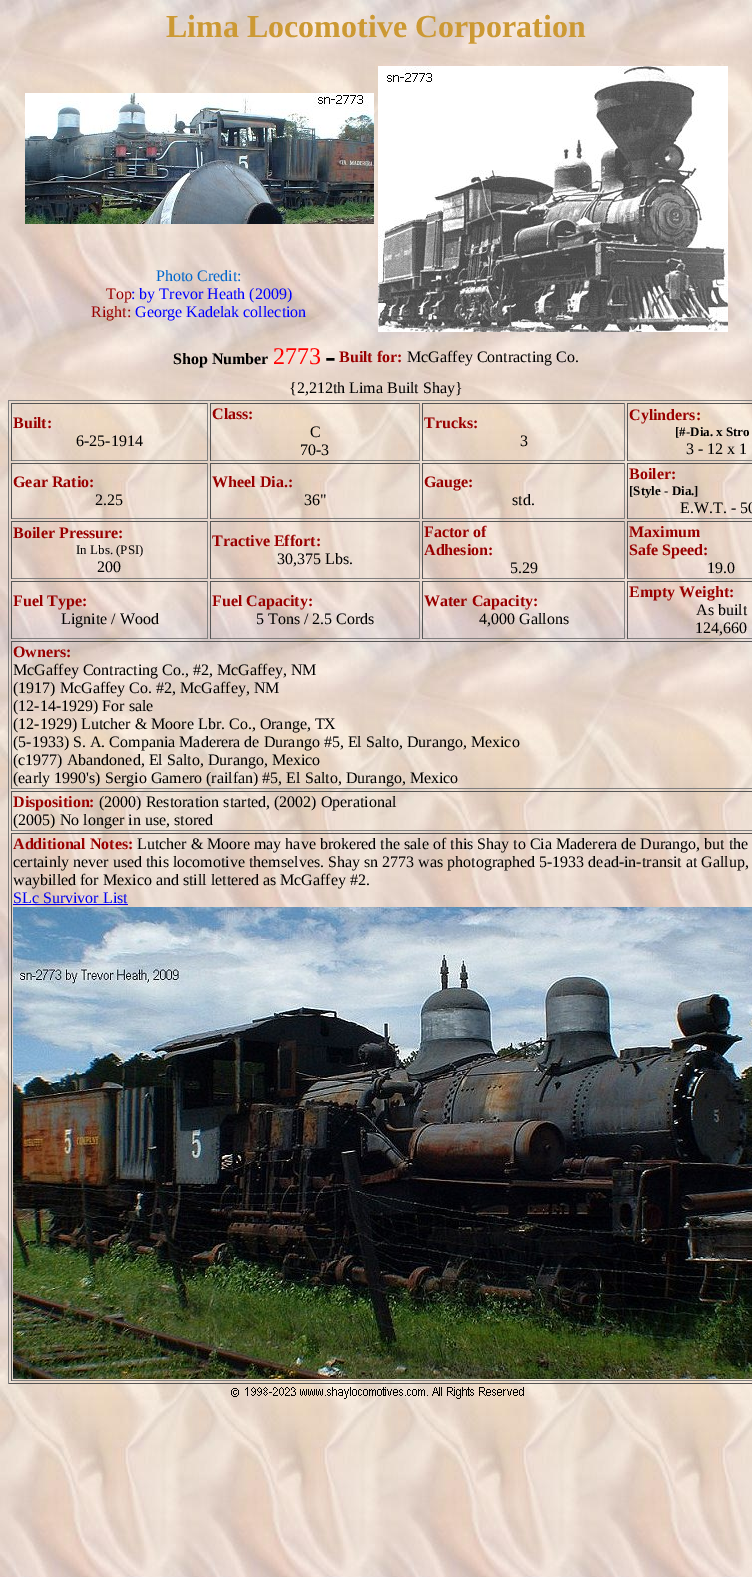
%!PS
<< /PageSize [752 1577] >> setpagedevice
/rgb { 3 { 255 div 3 1 roll } repeat setrgbcolor } def
/font { [ exch dup neg 0 0 3 -1 roll 0 0 ] selectfont } def
/text { moveto show } def
/picture { 5 dict begin { /h /w /y /x /name } { exch def } forall
  gsave x y translate w h scale
  w h 8 [w 0 0 h 0 0] name (r) file false 3 colorimage grestore end } def
0 1577 translate 1 -1 scale
4 setmiterlimit
255 255 255 rgb
0 0 752 1577 rectfill
(img_01.rgb) 0 0 752 1577 picture
(img_02.rgb) 25 93 349 131 picture
(img_03.rgb) 378 66 350 266 picture
128 128 128 rgb
8 400 744 1 rectfill
85 85 85 rgb
8 1383 744 1 rectfill
128 128 128 rgb
8 400 1 984 rectfill
85 85 85 rgb
11 403 197 1 rectfill
128 128 128 rgb
207 403 1 58 rectfill
11 460 197 1 rectfill
85 85 85 rgb
11 403 1 58 rectfill
210 403 210 1 rectfill
128 128 128 rgb
419 403 1 58 rectfill
210 460 210 1 rectfill
85 85 85 rgb
210 403 1 58 rectfill
422 403 203 1 rectfill
128 128 128 rgb
624 403 1 58 rectfill
422 460 203 1 rectfill
85 85 85 rgb
422 403 1 58 rectfill
627 403 125 1 rectfill
128 128 128 rgb
627 460 125 1 rectfill
85 85 85 rgb
627 403 1 58 rectfill
11 463 197 1 rectfill
128 128 128 rgb
207 463 1 56 rectfill
11 518 197 1 rectfill
85 85 85 rgb
11 463 1 56 rectfill
210 463 210 1 rectfill
128 128 128 rgb
419 463 1 56 rectfill
210 518 210 1 rectfill
85 85 85 rgb
210 463 1 56 rectfill
422 463 203 1 rectfill
128 128 128 rgb
624 463 1 56 rectfill
422 518 203 1 rectfill
85 85 85 rgb
422 463 1 56 rectfill
627 463 125 1 rectfill
128 128 128 rgb
627 518 125 1 rectfill
85 85 85 rgb
627 463 1 56 rectfill
11 521 197 1 rectfill
128 128 128 rgb
207 521 1 58 rectfill
11 578 197 1 rectfill
85 85 85 rgb
11 521 1 58 rectfill
210 521 210 1 rectfill
128 128 128 rgb
419 521 1 58 rectfill
210 578 210 1 rectfill
85 85 85 rgb
210 521 1 58 rectfill
422 521 203 1 rectfill
128 128 128 rgb
624 521 1 58 rectfill
422 578 203 1 rectfill
85 85 85 rgb
422 521 1 58 rectfill
627 521 125 1 rectfill
128 128 128 rgb
627 578 125 1 rectfill
85 85 85 rgb
627 521 1 58 rectfill
11 581 197 1 rectfill
128 128 128 rgb
207 581 1 58 rectfill
11 638 197 1 rectfill
85 85 85 rgb
11 581 1 58 rectfill
210 581 210 1 rectfill
128 128 128 rgb
419 581 1 58 rectfill
210 638 210 1 rectfill
85 85 85 rgb
210 581 1 58 rectfill
422 581 203 1 rectfill
128 128 128 rgb
624 581 1 58 rectfill
422 638 203 1 rectfill
85 85 85 rgb
422 581 1 58 rectfill
627 581 125 1 rectfill
128 128 128 rgb
627 638 125 1 rectfill
85 85 85 rgb
627 581 1 58 rectfill
11 641 741 1 rectfill
128 128 128 rgb
11 788 741 1 rectfill
85 85 85 rgb
11 641 1 148 rectfill
11 791 741 1 rectfill
128 128 128 rgb
11 830 741 1 rectfill
85 85 85 rgb
11 791 1 40 rectfill
11 833 741 1 rectfill
128 128 128 rgb
11 1380 741 1 rectfill
85 85 85 rgb
11 833 1 548 rectfill
0 0 238 rgb
13 904 115 1 rectfill
(img_04.rgb) 13 907 739 472 picture
(img_05.rgb) 231 1387 293 12 picture
/LiberationSerif-Bold 32 font
204 153 51 rgb
(Lima Locomotive Corporation) 166 37 text
/LiberationSerif-Regular 16 font
0 102 204 rgb
(Photo Credit:) 156 281 text
153 0 0 rgb
(Top) 106 299 text
0 0 255 rgb
(: by Trevor Heath \(2009\)) 131 299 text
153 0 0 rgb
(Right:) 91 317 text
0 0 255 rgb
(George Kadelak collection) 135 317 text
/LiberationSerif-Bold 16 font
0 0 0 rgb
(Shop Number) 173 364 text
/LiberationSerif-Regular 24 font
255 0 0 rgb
(2773) 273 364 text
/LiberationSerif-Bold 32 font
0 0 0 rgb
(-) 325 367 text
/LiberationSerif-Bold 16 font
153 0 0 rgb
(Built for:) 339 362 text
/LiberationSerif-Regular 16 font
0 0 0 rgb
(McGaffey Contracting Co.) 407 362 text
({2,212th Lima Built Shay}) 289 393 text
/LiberationSerif-Bold 16 font
153 0 0 rgb
(Built:) 13 428 text
/LiberationSerif-Regular 16 font
0 0 0 rgb
(6-25-1914) 76 446 text
/LiberationSerif-Bold 16 font
153 0 0 rgb
(Class:) 212 419 text
/LiberationSerif-Regular 16 font
0 0 0 rgb
(C) 310 437 text
(70-3) 300 455 text
/LiberationSerif-Bold 16 font
153 0 0 rgb
(Trucks:) 424 428 text
/LiberationSerif-Regular 16 font
0 0 0 rgb
(3) 520 446 text
/LiberationSerif-Bold 16 font
153 0 0 rgb
(Cylinders:) 629 420 text
/LiberationSerif-Bold 13 font
0 0 0 rgb
([#-Dia. x Stro) 675 436 text
/LiberationSerif-Regular 16 font
(3 - 12 x 1) 686 454 text
/LiberationSerif-Bold 16 font
153 0 0 rgb
(Gear Ratio:) 13 487 text
/LiberationSerif-Regular 16 font
0 0 0 rgb
(2.25) 95 505 text
/LiberationSerif-Bold 16 font
153 0 0 rgb
(Wheel Dia.:) 212 487 text
/LiberationSerif-Regular 16 font
0 0 0 rgb
(36") 304 505 text
/LiberationSerif-Bold 16 font
153 0 0 rgb
(Gauge:) 424 487 text
/LiberationSerif-Regular 16 font
0 0 0 rgb
(std.) 512 505 text
/LiberationSerif-Bold 16 font
153 0 0 rgb
(Boiler:) 629 479 text
/LiberationSerif-Bold 13 font
0 0 0 rgb
([Style - Dia.]) 629 495 text
/LiberationSerif-Regular 16 font
(E.W.T. - 50) 680 513 text
/LiberationSerif-Bold 16 font
153 0 0 rgb
(Boiler Pressure:) 13 538 text
/LiberationSerif-Regular 13 font
0 0 0 rgb
(In Lbs. \(PSI\)) 76 554 text
/LiberationSerif-Regular 16 font
(200) 97 572 text
/LiberationSerif-Bold 16 font
153 0 0 rgb
(Tractive Effort:) 212 546 text
/LiberationSerif-Regular 16 font
0 0 0 rgb
(30,375 Lbs.) 277 564 text
/LiberationSerif-Bold 16 font
153 0 0 rgb
(Factor of) 424 537 text
(Adhesion:) 424 555 text
/LiberationSerif-Regular 16 font
0 0 0 rgb
(5.29) 510 573 text
/LiberationSerif-Bold 16 font
153 0 0 rgb
(Maximum) 629 537 text
(Safe Speed:) 629 555 text
/LiberationSerif-Regular 16 font
0 0 0 rgb
(19.0) 707 573 text
/LiberationSerif-Bold 16 font
153 0 0 rgb
(Fuel Type:) 13 606 text
/LiberationSerif-Regular 16 font
0 0 0 rgb
(Lignite / Wood) 61 624 text
/LiberationSerif-Bold 16 font
153 0 0 rgb
(Fuel Capacity:) 212 606 text
/LiberationSerif-Regular 16 font
0 0 0 rgb
(5 Tons / 2.5 Cords) 256 624 text
/LiberationSerif-Bold 16 font
153 0 0 rgb
(Water Capacity:) 424 606 text
/LiberationSerif-Regular 16 font
0 0 0 rgb
(4,000 Gallons) 479 624 text
/LiberationSerif-Bold 16 font
153 0 0 rgb
(Empty Weight:) 629 597 text
/LiberationSerif-Regular 16 font
0 0 0 rgb
(As built) 696 615 text
(124,660) 695 633 text
/LiberationSerif-Bold 16 font
153 0 0 rgb
(Owners:) 13 657 text
/LiberationSerif-Regular 16 font
0 0 0 rgb
(McGaffey Contracting Co., #2, McGaffey, NM) 13 675 text
(\(1917\) McGaffey Co. #2, McGaffey, NM) 13 693 text
(\(12-14-1929\) For sale) 13 711 text
(\(12-1929\) Lutcher & Moore Lbr. Co., Orange, TX) 13 729 text
(\(5-1933\) S. A. Compania Maderera de Durango #5, El Salto, Durango, Mexico) 13 747 text
(\(c1977\) Abandoned, El Salto, Durango, Mexico) 13 765 text
(\(early 1990's\) Sergio Gamero \(railfan\) #5, El Salto, Durango, Mexico) 13 783 text
/LiberationSerif-Bold 16 font
153 0 0 rgb
(Disposition:) 13 807 text
/LiberationSerif-Regular 16 font
0 0 0 rgb
(\(2000\) Restoration started, \(2002\) Operational) 99 807 text
(\(2005\) No longer in use, stored) 13 825 text
/LiberationSerif-Bold 16 font
153 0 0 rgb
(Additional Notes:) 13 849 text
/LiberationSerif-Regular 16 font
0 0 0 rgb
(Lutcher & Moore may have brokered the sale of this Shay to Cia Maderera de Durango, but the) 137 849 text
(certainly never used this locomotive themselves. Shay sn 2773 was photographed 5-1933 dead-in-transit at Gallup,) 13 867 text
(waybilled for Mexico and still lettered as McGaffey #2.) 13 885 text
0 0 238 rgb
(SLc Survivor List) 13 903 text
showpage
